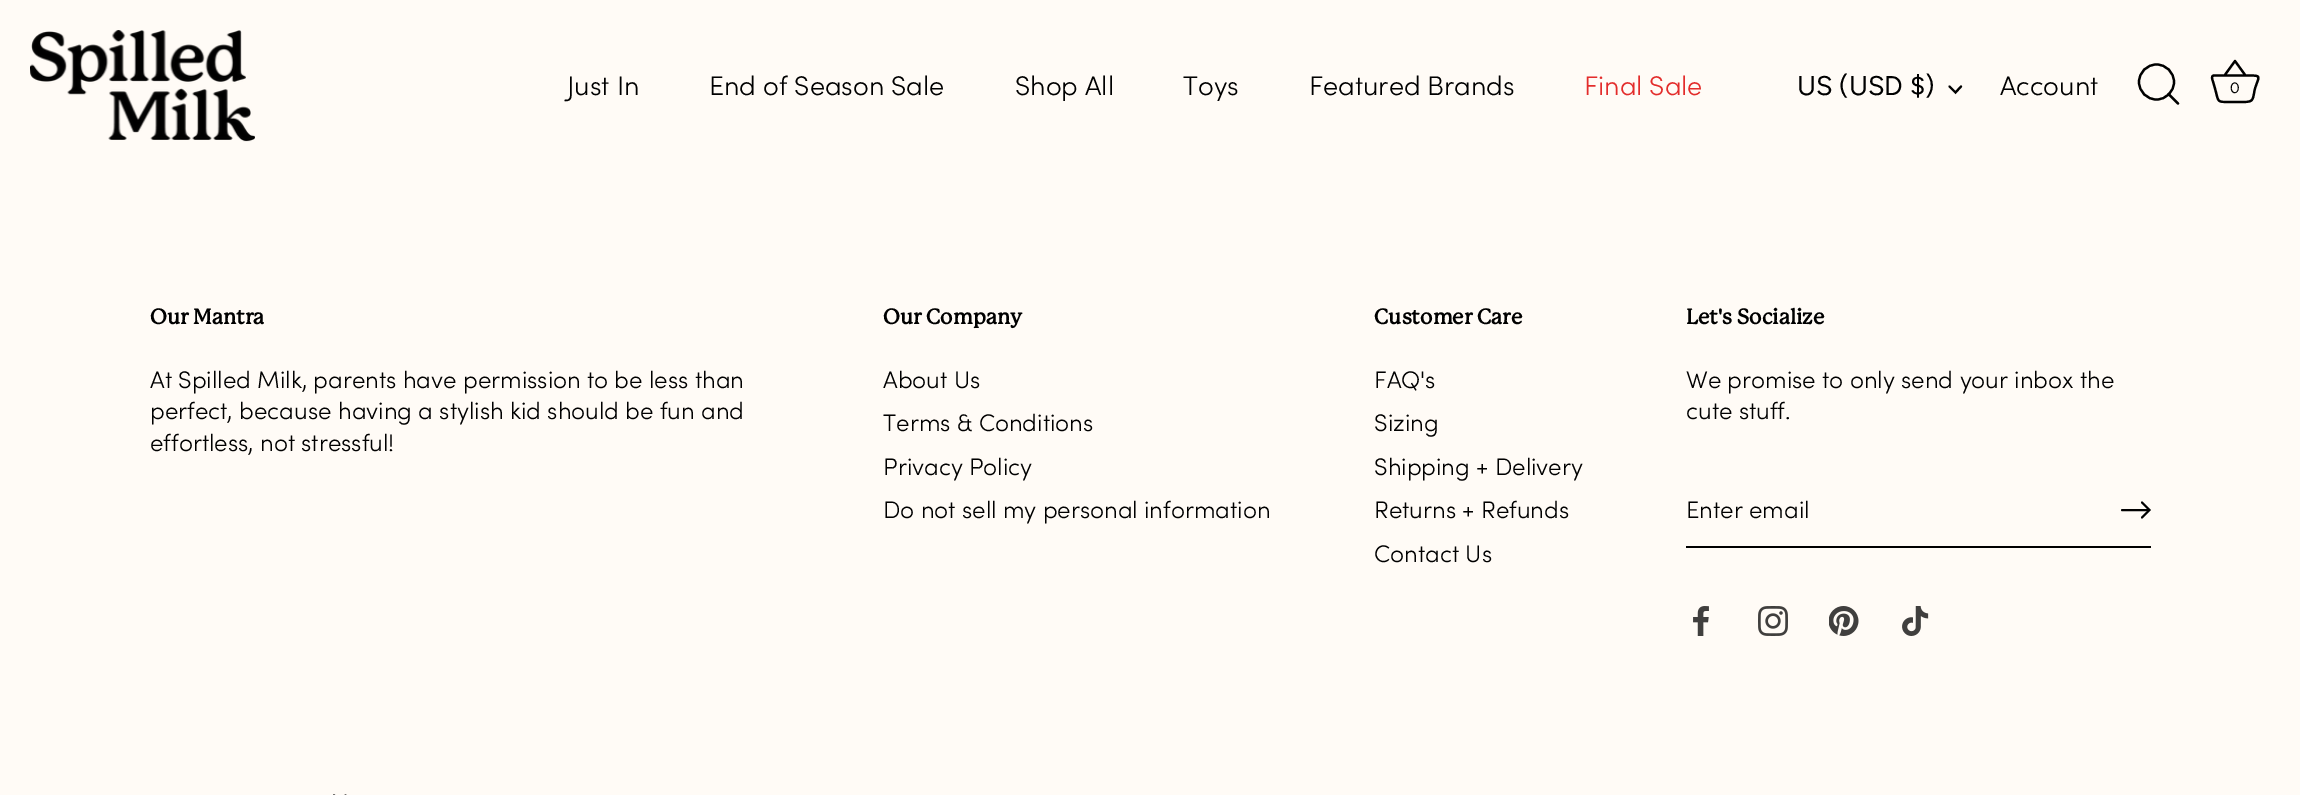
%!PS
<< /PageSize [2300 795] >> setpagedevice
/rgb { 3 { 255 div 3 1 roll } repeat setrgbcolor } def
/font { [ exch dup neg 0 0 3 -1 roll 0 0 ] selectfont } def
/text { moveto show } def
/circle { newpath 0 360 arc closepath } def
/picture { 5 dict begin { /h /w /y /x /name } { exch def } forall
  gsave x y translate w h scale
  w h 8 [w 0 0 h 0 0] name (r) file false 3 colorimage grestore end } def
0 795 translate 1 -1 scale
4 setmiterlimit
255 251 246 rgb
0 0 2300 795 rectfill
(img_01.rgb) 30 30 225 112 picture
0 0 0 rgb
2.1 setlinewidth
1 setlinecap
1949.5 86.5 moveto 6 6 rlineto 5.5 -6 rlineto stroke
2.2 setlinewidth
0 setlinecap
2156.5 82 17.5 circle stroke
1 setlinecap
1 setlinejoin
2178 103.5 moveto -9.5 -9.5 rlineto stroke
0 setlinecap
2214 75.5 moveto -3.5 0 -1.5 4.5 -1 6 rcurveto 2 7 rlineto 4 14 1 13.5 15.5 13.5 rcurveto 13 0 rlineto 11 0 9 -3 11.5 -13.5 rcurveto 4 -12.5 7 -13 -6 -13 rcurveto -35 0 rlineto 2224.5 75.5 moveto 10.5 -14.5 rlineto 10.5 14.5 rlineto stroke
1686 546 465 2 rectfill
1.9 setlinewidth
1 setlinecap
0 setlinejoin
2142 517.5 moveto 7.5 -7.5 rlineto -7.5 -7.5 rlineto stroke
1 setlinejoin
2148.5 510 moveto -26.5 0 rlineto stroke
(img_02.rgb) 1693 606 16 30 picture
(img_03.rgb) 1758 606 30 30 picture
(img_04.rgb) 1829 606 30 30 picture
(img_05.rgb) 1902 606 27 30 picture
2.1 setlinewidth
0 setlinejoin
334 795.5 moveto 6 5.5 rlineto 5.5 -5.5 rlineto stroke
/Sofia-Light 27 font
(Just In) 567 95 text
(End of Season Sale) 709 95 text
(Shop All) 1015 95 text
(Toys) 1183 95 text
(Featured Brands) 1309 95 text
227 44 43 rgb
(Final Sale) 1584 95 text
/Figtree-Regular 27 font
0 0 0 rgb
(US \(USD $\)) 1797 95 text
/Sofia-Light 27 font
(Account) 2000 95 text
/Figtree-Regular 15 font
(0) 2230 93 text
/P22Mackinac-Bold 21 font
(Our Mantra) 150 324 text
/Sofia-Light 24 font
(At Spilled Milk, parents have permission to be less than) 150 388 text
(perfect, because having a stylish kid should be fun and) 150 419 text
(effortless, not stressful!) 150 451 text
/P22Mackinac-Bold 21 font
(Our Company) 883 324 text
/Sofia-Light 24 font
(About Us) 883 388 text
(Terms & Conditions) 883 431 text
(Privacy Policy) 883 475 text
(Do not sell my personal information) 883 518 text
/P22Mackinac-Bold 21 font
(Customer Care) 1374 324 text
/Sofia-Light 24 font
(FAQ's) 1374 388 text
(Sizing) 1374 431 text
(Shipping + Delivery) 1374 475 text
(Returns + Refunds) 1374 518 text
(Contact Us) 1374 562 text
/P22Mackinac-Bold 21 font
(Let's Socialize) 1686 324 text
/Sofia-Light 24 font
(We promise to only send your inbox the) 1686 388 text
(cute stuff.) 1686 419 text
(Enter email) 1686 518 text
showpage
